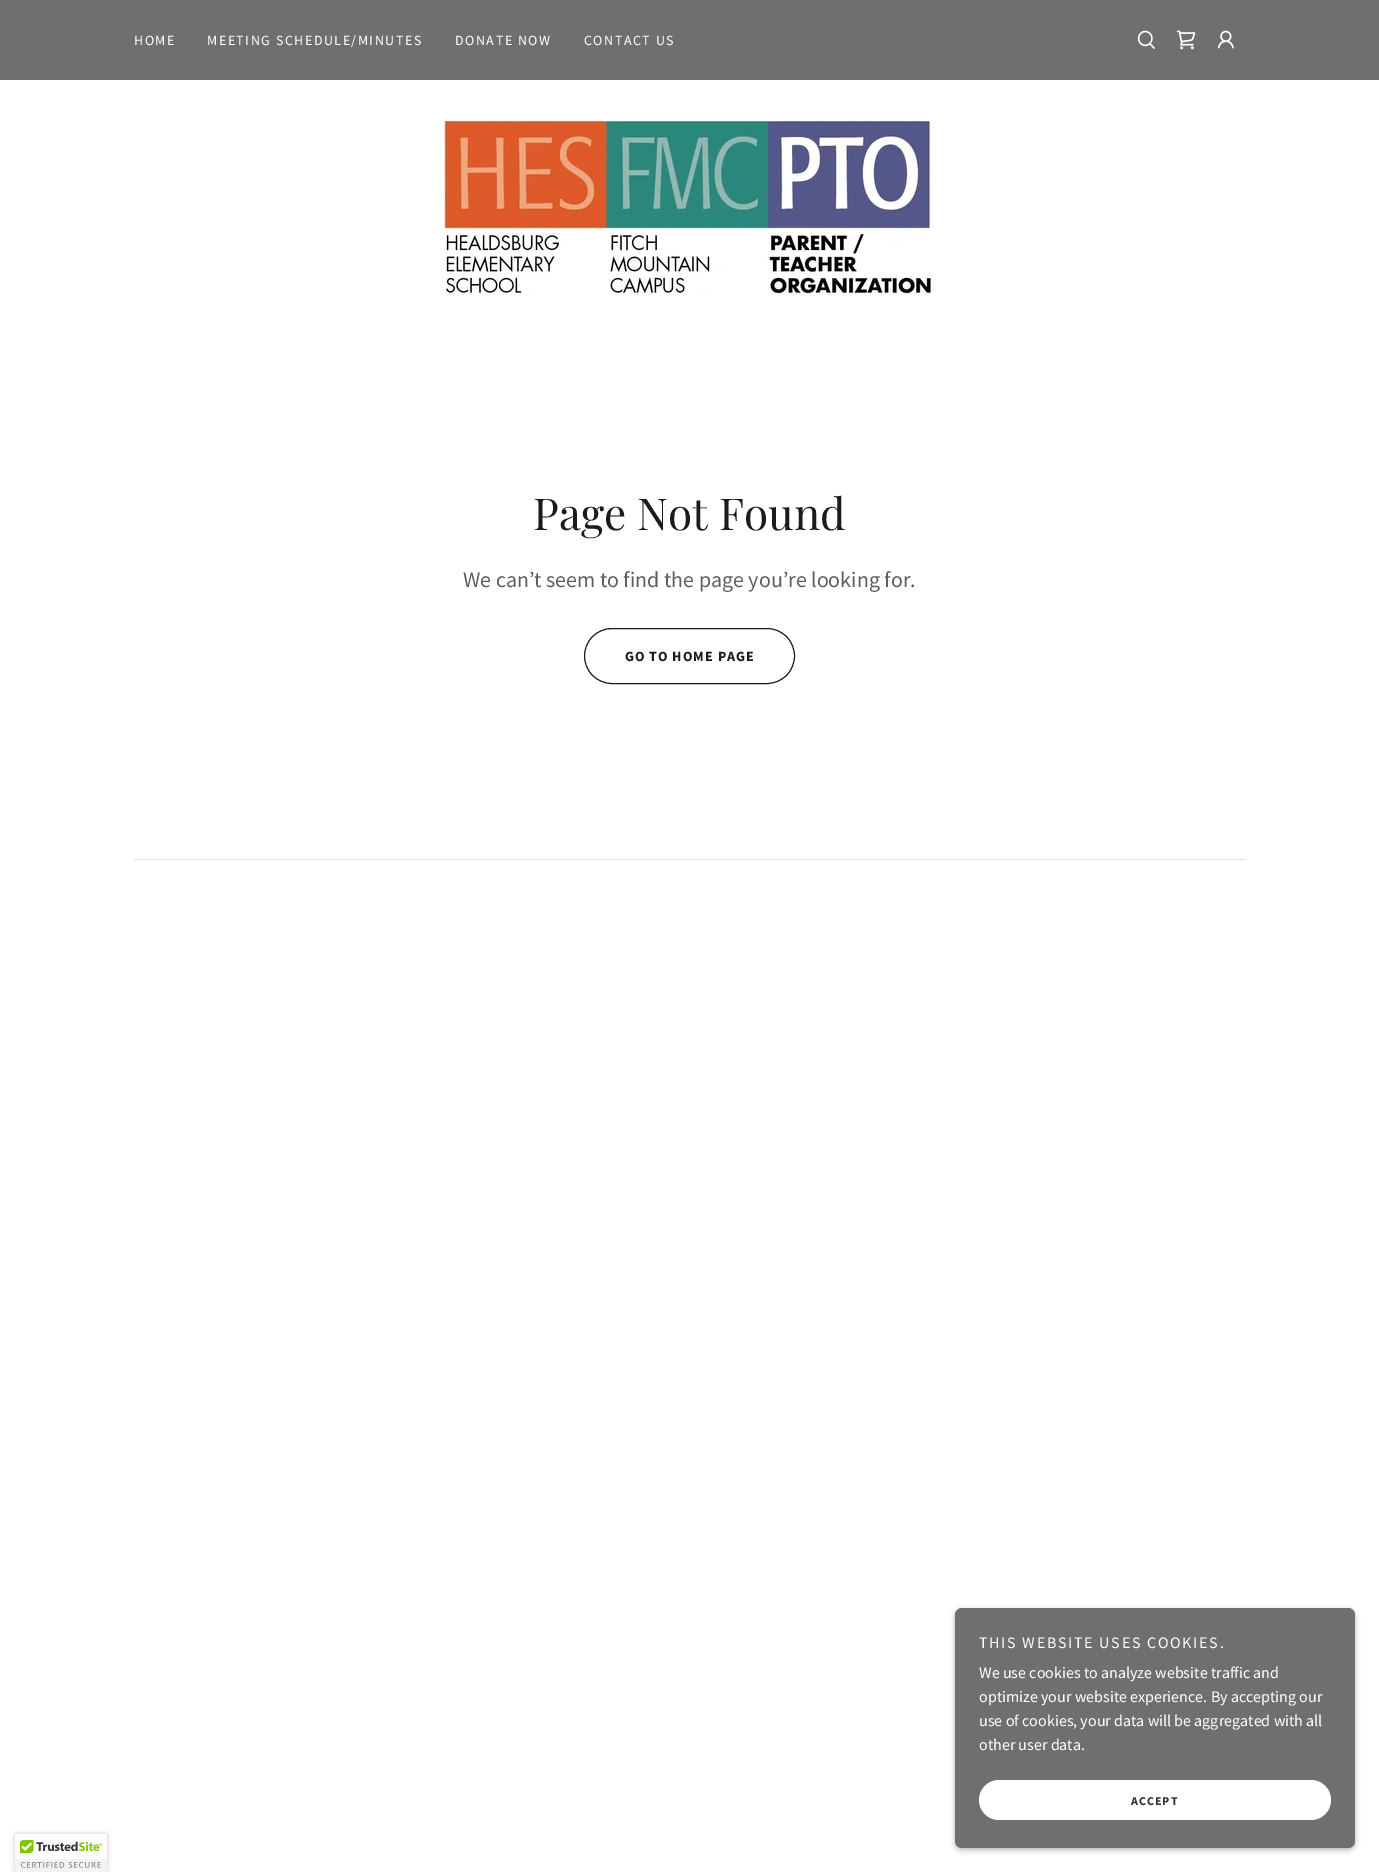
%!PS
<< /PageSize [1379 1872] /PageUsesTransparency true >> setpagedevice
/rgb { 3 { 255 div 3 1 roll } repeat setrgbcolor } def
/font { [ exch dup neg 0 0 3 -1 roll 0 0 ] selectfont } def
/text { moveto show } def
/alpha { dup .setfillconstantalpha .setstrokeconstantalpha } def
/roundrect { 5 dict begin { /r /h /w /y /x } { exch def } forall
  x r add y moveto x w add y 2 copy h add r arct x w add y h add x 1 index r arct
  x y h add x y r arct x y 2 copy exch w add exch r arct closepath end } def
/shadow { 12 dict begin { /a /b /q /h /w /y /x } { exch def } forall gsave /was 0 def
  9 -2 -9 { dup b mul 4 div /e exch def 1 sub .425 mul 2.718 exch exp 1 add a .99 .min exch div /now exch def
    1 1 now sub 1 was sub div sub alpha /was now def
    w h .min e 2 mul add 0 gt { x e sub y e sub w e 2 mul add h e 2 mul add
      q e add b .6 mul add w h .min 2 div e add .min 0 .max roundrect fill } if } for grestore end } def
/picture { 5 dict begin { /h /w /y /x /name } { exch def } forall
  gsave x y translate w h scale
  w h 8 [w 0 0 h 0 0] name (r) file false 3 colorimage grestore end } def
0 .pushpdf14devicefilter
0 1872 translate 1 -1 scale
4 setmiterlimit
255 255 255 rgb
0 0 1379 1872 rectfill
111 111 111 rgb
0 0 1379 80 rectfill
(img_01.rgb) 1137 30 18 19 picture
(img_02.rgb) 1176 30 20 20 picture
(img_03.rgb) 1217 30 17 19 picture
(img_04.rgb) 443 119 490 177 picture
27 27 27 rgb
584.5 628.5 210 55 27.5 roundrect stroke
226 226 226 rgb
134 859 1112 1 rectfill
0 0 0 rgb
955 1610 400 240 7 3 0.3 shadow
111 111 111 rgb
955 1608 400 240 7 roundrect fill
255 255 255 rgb
979 1780 352 40 20 roundrect fill
0 0 0 rgb
15 1834 92 38 2 2.5 0.2 shadow
255 255 255 rgb
17 1834 moveto 88 0 rlineto 1 0 2 1 2 2 rcurveto 0 36 rlineto -92 0 rlineto 0 -36 rlineto 0 -1 1 -2 2 -2 rcurveto closepath fill
(img_05.rgb) 15 1840 92 32 picture
/SourceSansPro-Regular 14 font
134 45 moveto 1.5 0 (HOME) ashow
207 45 moveto 1.5 0 (MEETING SCHEDULE/MINUTES) ashow
455 45 moveto 1.5 0 (DONATE NOW) ashow
584 45 moveto 1.5 0 (CONTACT US) ashow
/PlayfairDisplay-Regular 44 font
27 27 27 rgb
(Page Not Found) 533 530 text
/SourceSansPro-Regular 22 font
94 94 94 rgb
(We can’t seem to find the page you’re looking for.) 463 587 text
/SourceSansPro-Bold 14 font
27 27 27 rgb
625 661 moveto 1 0 (GO TO HOME PAGE) ashow
/SourceSansPro-Regular 16 font
255 255 255 rgb
979 1648 moveto 1.7 0 (THIS WEBSITE USES COOKIES.) ashow
(We use cookies to analyze website traffic and) 979 1678 text
(optimize your website experience. By accepting our) 979 1702 text
(use of cookies, your data will be aggregated with all) 979 1726 text
(other user data.) 979 1750 text
/SourceSansPro-Bold 12 font
48 48 48 rgb
1131 1805 moveto 1 0 (ACCEPT) ashow
.poppdf14devicefilter showpage
